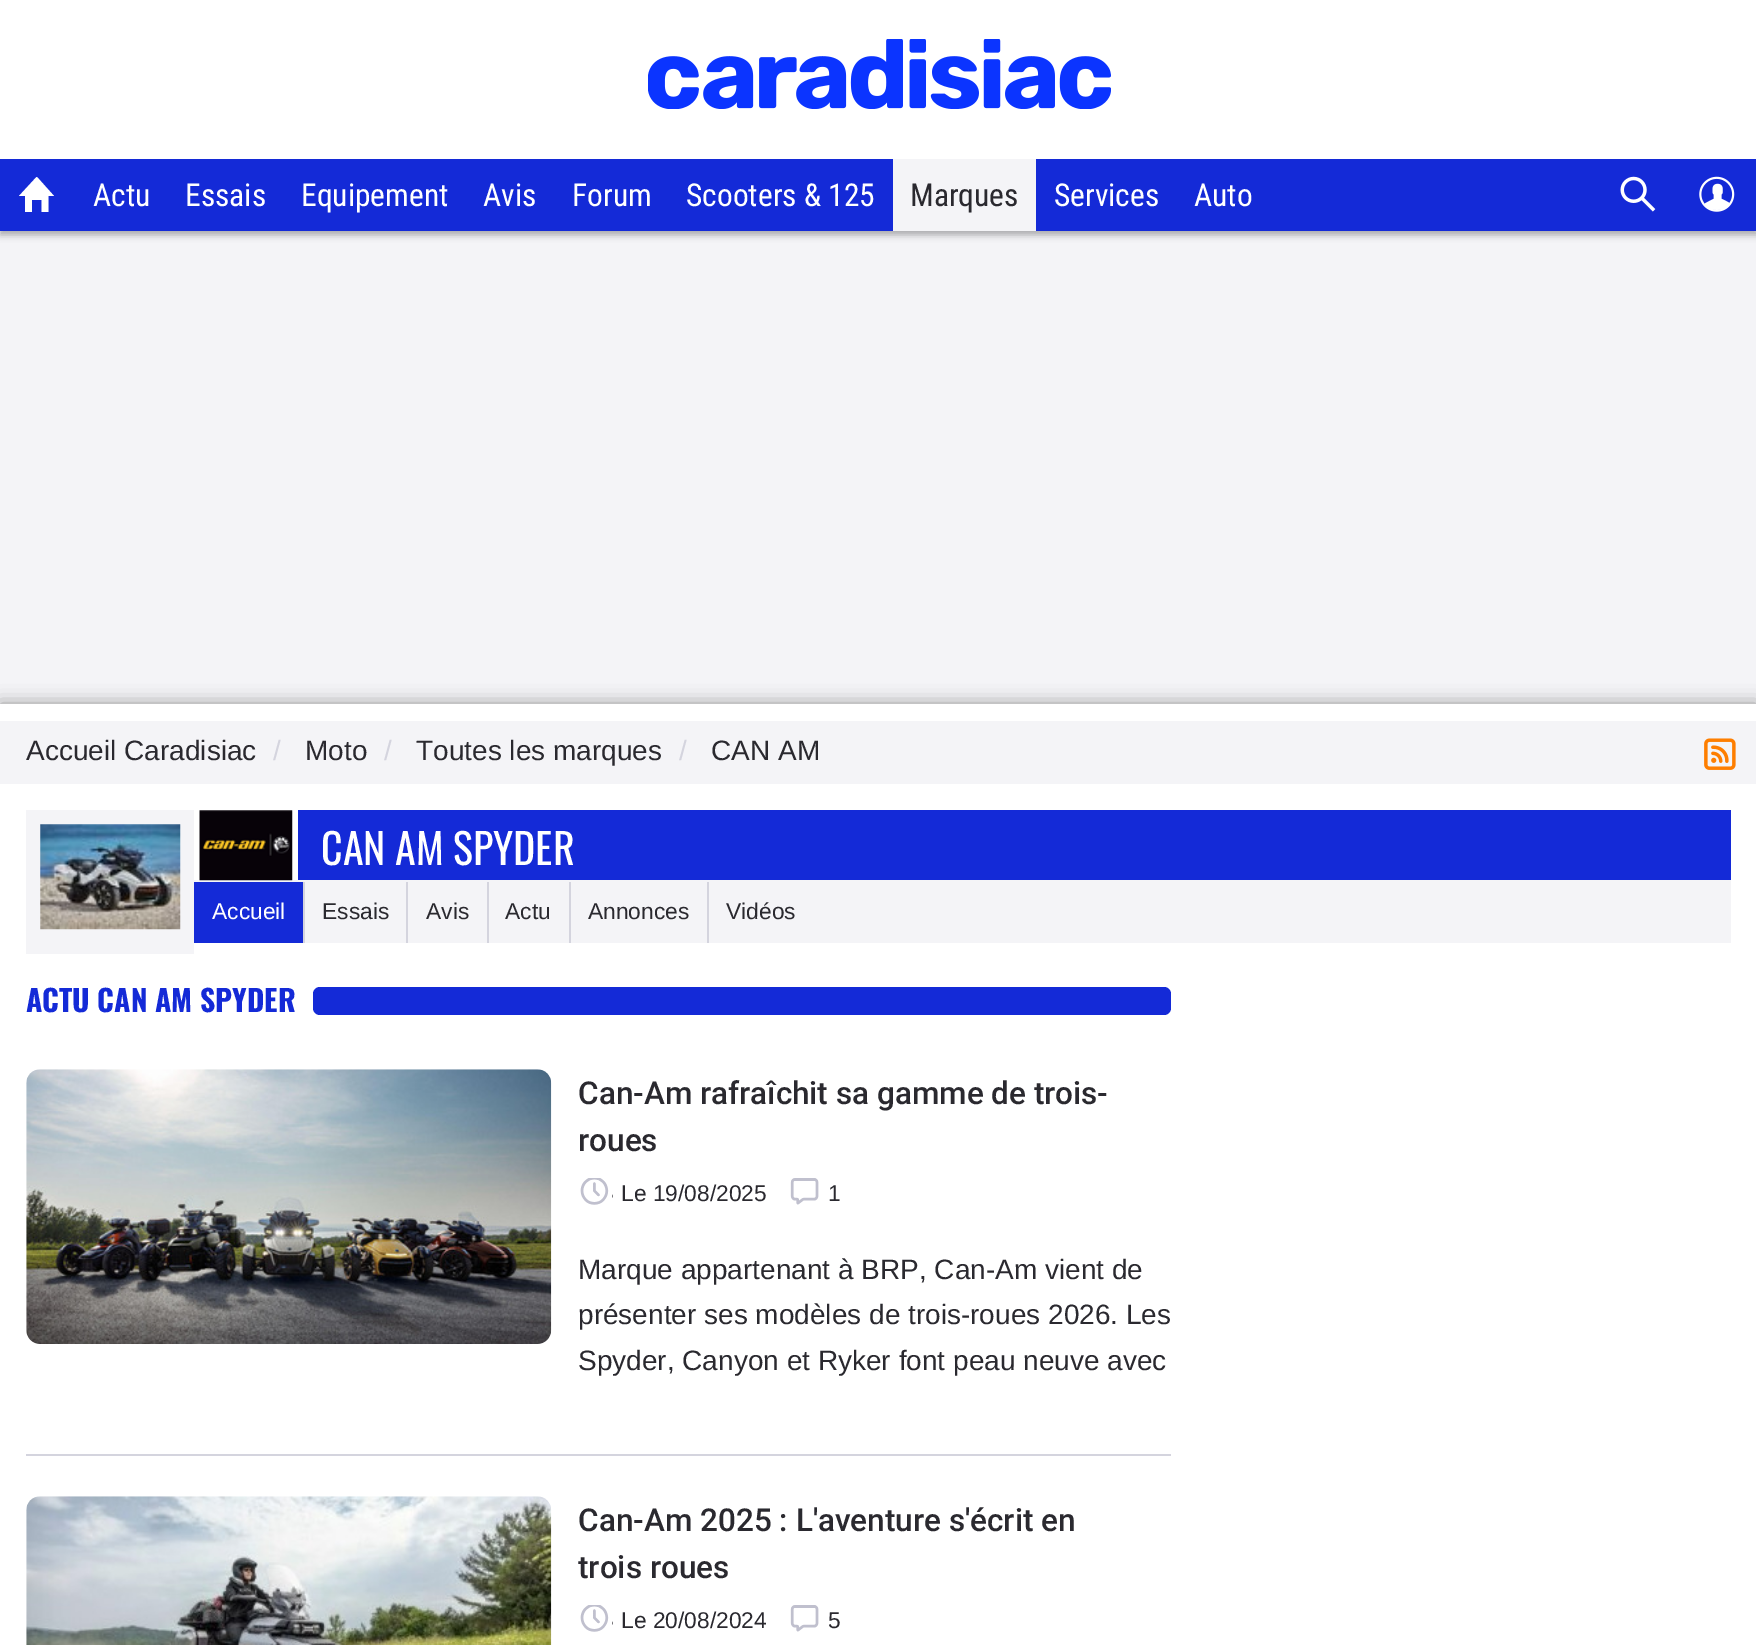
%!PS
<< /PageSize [1756 1645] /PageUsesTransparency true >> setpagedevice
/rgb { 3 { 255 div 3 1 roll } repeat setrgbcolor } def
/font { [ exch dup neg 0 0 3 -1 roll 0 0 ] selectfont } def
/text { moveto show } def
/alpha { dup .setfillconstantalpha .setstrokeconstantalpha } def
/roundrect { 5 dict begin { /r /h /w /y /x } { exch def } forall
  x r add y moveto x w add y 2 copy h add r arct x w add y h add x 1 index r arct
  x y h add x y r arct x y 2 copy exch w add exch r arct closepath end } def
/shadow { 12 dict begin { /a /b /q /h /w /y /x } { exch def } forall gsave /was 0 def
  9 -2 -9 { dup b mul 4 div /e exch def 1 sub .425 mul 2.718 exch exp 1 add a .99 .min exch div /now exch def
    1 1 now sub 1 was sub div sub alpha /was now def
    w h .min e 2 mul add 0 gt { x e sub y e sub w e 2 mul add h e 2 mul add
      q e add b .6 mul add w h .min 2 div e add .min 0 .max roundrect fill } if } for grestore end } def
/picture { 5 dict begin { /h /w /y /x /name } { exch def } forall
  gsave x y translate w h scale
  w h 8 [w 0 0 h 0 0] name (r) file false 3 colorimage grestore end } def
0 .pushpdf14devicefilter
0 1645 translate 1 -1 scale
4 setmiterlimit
244 244 247 rgb
0 0 1756 1645 rectfill
0 0 0 rgb
0 4 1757 231 0 3.5 0.3 shadow
255 255 255 rgb
0 0 1756 159 rectfill
(img_01.rgb) 648 39 463 70 picture
20 42 215 rgb
0 159 1756 72 rectfill
255 255 255 rgb
36.5 177 moveto -17.5 19 rlineto 6 0 rlineto 0 16 rlineto 7 0 rlineto 0 -12 rlineto 9.5 0 rlineto 0 12 rlineto 7 0 rlineto 0 -16 rlineto 5.5 0 rlineto -17 -19 rlineto closepath eofill
244 244 247 rgb
893 159 143 72 rectfill
(img_02.rgb) 1620 176 36 36 picture
(img_03.rgb) 1699 176 36 36 picture
0 0 0 rgb
0 704 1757 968 0 9 0.4 shadow
255 255 255 rgb
0 704 1756 941 rectfill
244 244 247 rgb
0 721 1756 63 rectfill
(img_04.rgb) 1704 738 32 32 picture
194 880 1537 63 rectfill
26 810 168 144 rectfill
(img_05.rgb) 40 824 141 106 picture
(img_06.rgb) 199 810 94 71 picture
20 42 215 rgb
298 810 1433 70 rectfill
194 882 109 61 rectfill
212 212 222 rgb
303 882 2 61 rectfill
406 882 2 61 rectfill
487 882 2 61 rectfill
569 882 2 61 rectfill
707 882 2 61 rectfill
20 42 215 rgb
313 987 858 28 7 roundrect fill
212 212 222 rgb
26 1454 1145 2 rectfill
(img_07.rgb) 26 1069 526 275 picture
(img_08.rgb) 580 1178 33 27 picture
(img_09.rgb) 790 1178 29 27 picture
(img_10.rgb) 26 1496 526 149 picture
(img_08.rgb) 580 1605 33 27 picture
(img_09.rgb) 790 1605 29 27 picture
/RobotoCondensed-Regular 31.5 font
255 255 255 rgb
(Actu) 93 206 text
(Essais) 185 206 text
(Equipement) 301 206 text
(Avis) 483 206 text
(Forum) 572 206 text
(Scooters & 125) 686 206 text
42 41 47 rgb
(Marques) 910 206 text
255 255 255 rgb
(Services) 1054 206 text
(Auto) 1194 206 text
/LiberationSans-Regular 28 font
42 41 47 rgb
(Accueil Caradisiac) 26 760 text
212 212 222 rgb
(/) 273 760 text
42 41 47 rgb
(Moto) 305 760 text
212 212 222 rgb
(/) 384 760 text
42 41 47 rgb
(Toutes les marques) 416 760 text
212 212 222 rgb
(/) 679 760 text
42 41 47 rgb
(CAN AM) 711 760 text
/Oswald-Regular 42 font
255 255 255 rgb
(CAN AM SPYDER) 321 865 text
/LiberationSans-Regular 22.75 font
(Accueil) 212 919 text
42 41 47 rgb
(Essais) 322 919 text
(Avis) 426 919 text
(Actu) 505 919 text
(Annonces) 588 919 text
(Vidéos) 726 919 text
/Oswald-Bold 29.75 font
20 42 215 rgb
(ACTU CAN AM SPYDER) 26 1012 text
/Roboto-Medium 31.5 font
42 41 47 rgb
(Can-Am rafraîchit sa gamme de trois-) 578 1104 text
(roues) 578 1151 text
/LiberationSans-Regular 22.75 font
(Le 19/08/2025) 621 1201 text
(1) 828 1201 text
/LiberationSans-Regular 28 font
(Marque appartenant à BRP, Can-Am vient de) 578 1279 text
(présenter ses modèles de trois-roues 2026. Les) 578 1324 text
(Spyder, Canyon et Ryker font peau neuve avec) 578 1370 text
/Roboto-Medium 31.5 font
(Can-Am 2025 : L'aventure s'écrit en) 578 1531 text
gsave
578 1496 593 95 rectclip
(trois roues) 578 1578 text
grestore
/LiberationSans-Regular 22.75 font
(Le 20/08/2024) 621 1628 text
(5) 828 1628 text
.poppdf14devicefilter showpage
